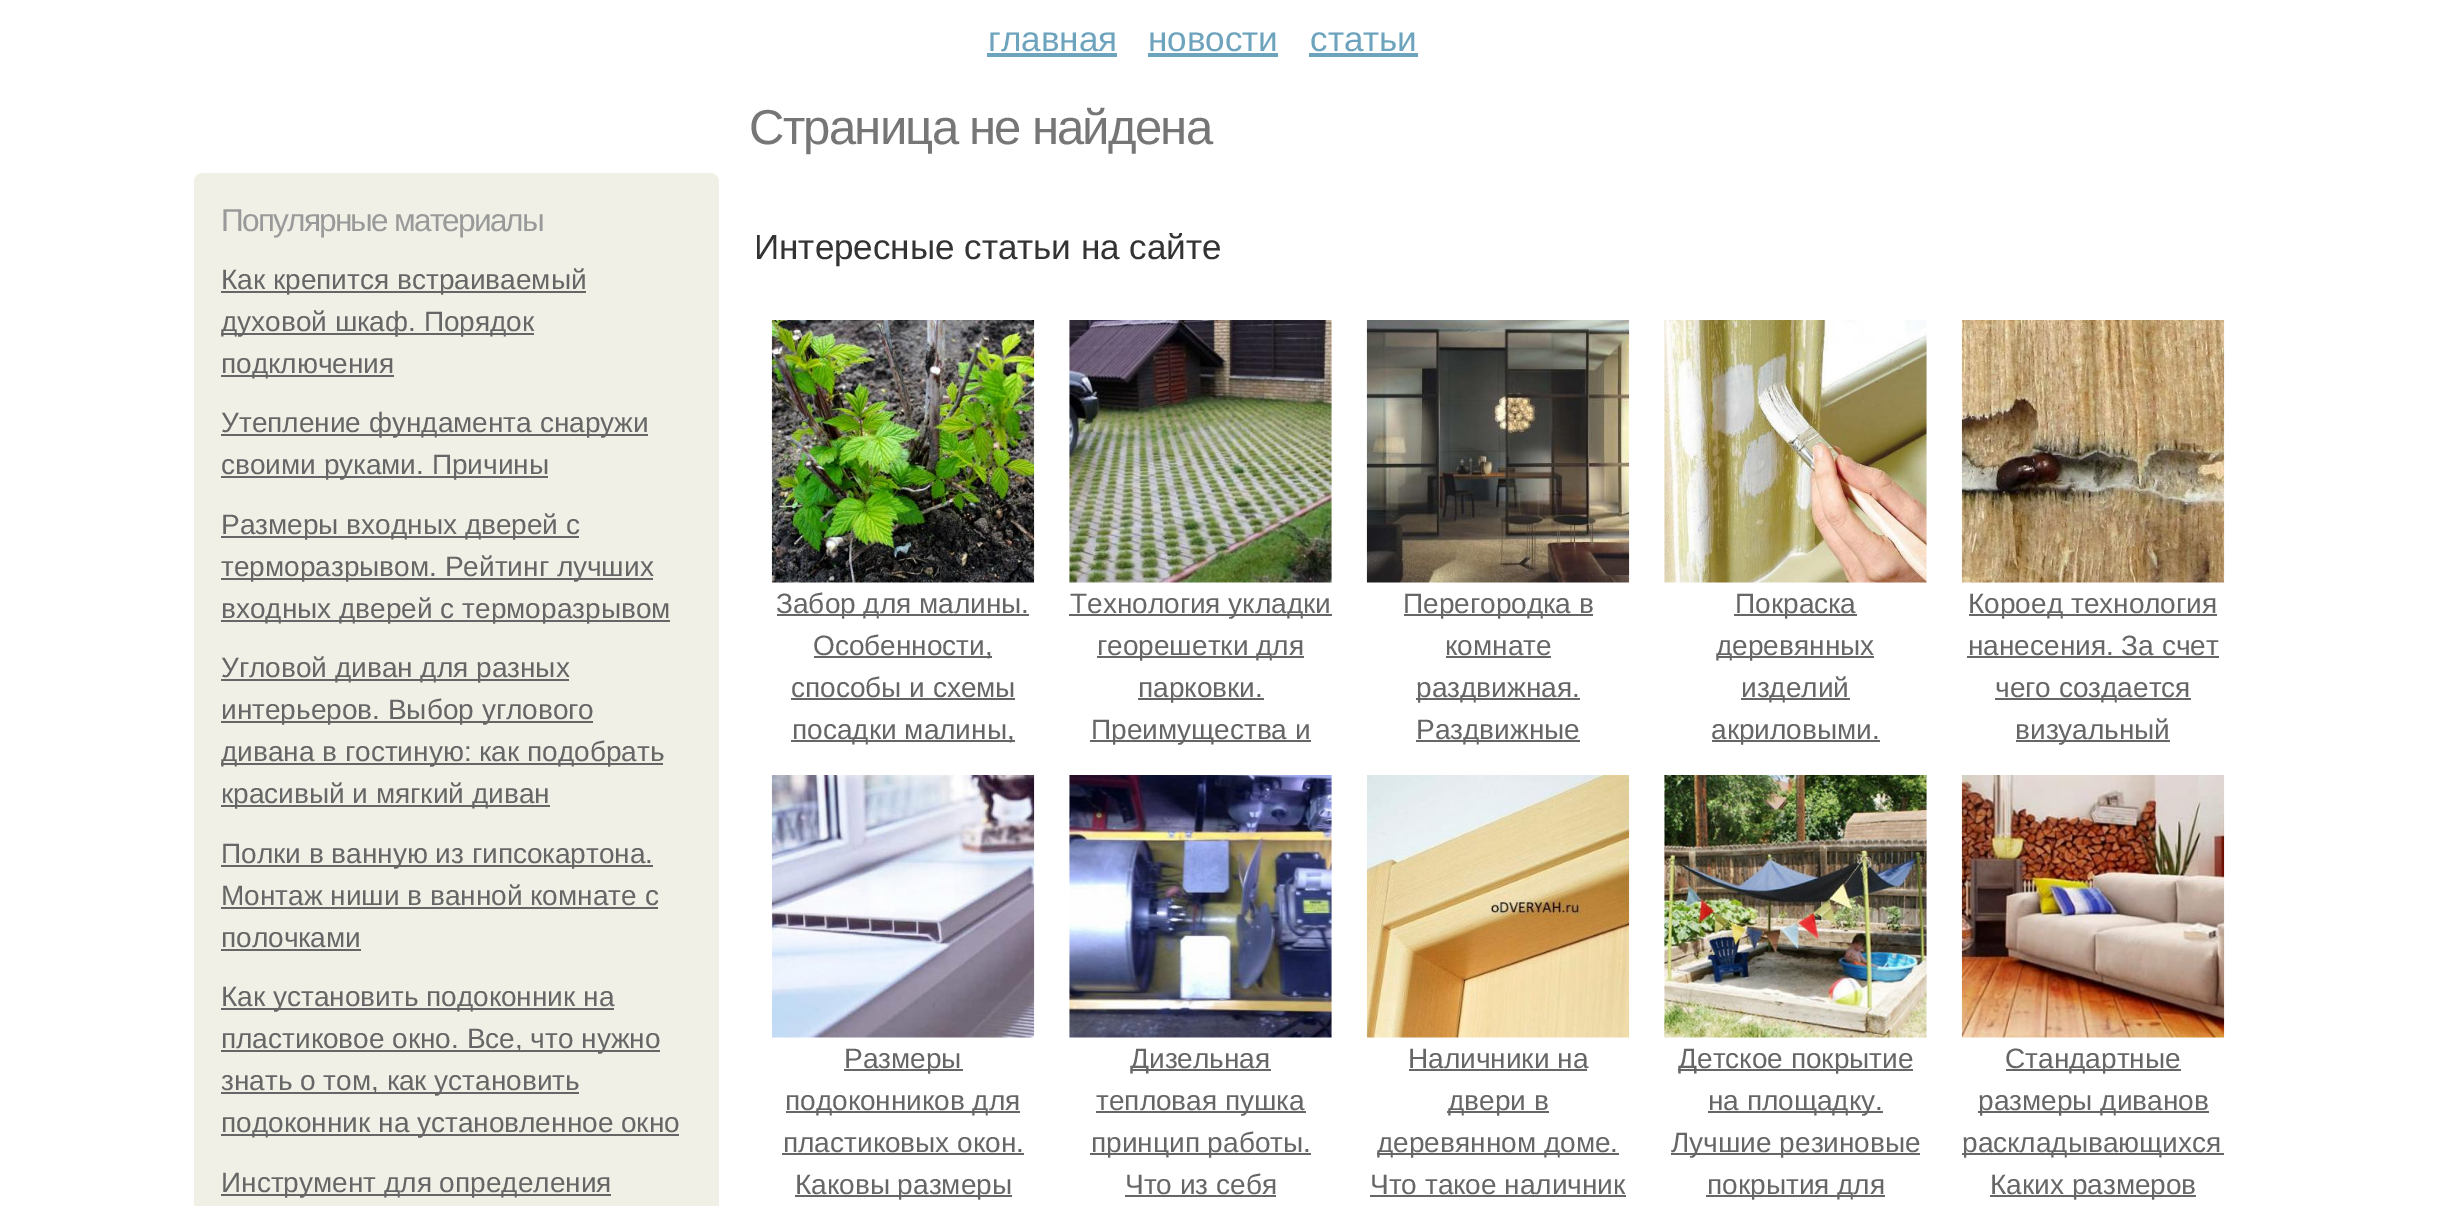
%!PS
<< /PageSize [2453 1206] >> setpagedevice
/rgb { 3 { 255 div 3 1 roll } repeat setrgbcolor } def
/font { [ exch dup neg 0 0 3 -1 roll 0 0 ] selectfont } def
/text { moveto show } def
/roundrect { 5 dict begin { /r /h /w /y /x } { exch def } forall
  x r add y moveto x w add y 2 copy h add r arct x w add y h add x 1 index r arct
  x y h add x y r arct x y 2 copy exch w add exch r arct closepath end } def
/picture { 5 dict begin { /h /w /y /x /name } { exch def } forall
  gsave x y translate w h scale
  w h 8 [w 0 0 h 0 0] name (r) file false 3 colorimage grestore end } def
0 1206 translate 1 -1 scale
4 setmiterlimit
255 255 255 rgb
0 0 2453 1206 rectfill
109 163 189 rgb
987 53 130 4 rectfill
1148 53 130 4 rectfill
1309 53 109 4 rectfill
240 240 231 rgb
194 173 525 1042 9 roundrect fill
102 102 102 rgb
221 291 365 2 rectfill
221 333 313 2 rectfill
221 375 173 2 rectfill
221 434 427 2 rectfill
221 476 327 2 rectfill
221 536 358 2 rectfill
221 578 432 2 rectfill
221 620 449 2 rectfill
221 679 348 2 rectfill
221 721 372 2 rectfill
221 763 442 2 rectfill
221 805 329 2 rectfill
221 865 432 2 rectfill
221 907 437 2 rectfill
221 949 140 2 rectfill
221 1008 393 2 rectfill
221 1050 439 2 rectfill
221 1092 358 2 rectfill
221 1134 458 2 rectfill
221 1194 390 2 rectfill
(img_01.rgb) 771 320 264 263 picture
777 614 252 2 rectfill
814 656 178 2 rectfill
791 698 224 2 rectfill
791 740 224 2 rectfill
(img_02.rgb) 1069 320 263 263 picture
1069 614 263 2 rectfill
1097 656 207 2 rectfill
1138 698 126 2 rectfill
1090 740 221 2 rectfill
(img_03.rgb) 1366 320 264 263 picture
1404 614 189 2 rectfill
1446 656 105 2 rectfill
1416 698 164 2 rectfill
1416 740 164 2 rectfill
(img_04.rgb) 1664 320 263 263 picture
1734 614 123 2 rectfill
1717 656 157 2 rectfill
1741 698 109 2 rectfill
1712 740 168 2 rectfill
(img_05.rgb) 1961 320 264 263 picture
1969 614 248 2 rectfill
1967 656 252 2 rectfill
1995 698 196 2 rectfill
2016 740 154 2 rectfill
(img_06.rgb) 771 775 264 263 picture
844 1069 119 2 rectfill
786 1111 234 2 rectfill
782 1153 242 2 rectfill
795 1195 217 2 rectfill
(img_07.rgb) 1069 775 263 263 picture
1131 1069 140 2 rectfill
1096 1111 210 2 rectfill
1090 1153 221 2 rectfill
1125 1195 151 2 rectfill
(img_08.rgb) 1366 775 264 263 picture
1409 1069 178 2 rectfill
1447 1111 102 2 rectfill
1377 1153 242 2 rectfill
1370 1195 256 2 rectfill
(img_09.rgb) 1664 775 263 263 picture
1678 1069 235 2 rectfill
1708 1111 175 2 rectfill
1671 1153 249 2 rectfill
1706 1195 179 2 rectfill
(img_10.rgb) 1961 775 264 263 picture
2006 1069 175 2 rectfill
1978 1111 231 2 rectfill
1962 1153 262 2 rectfill
1990 1195 206 2 rectfill
/LiberationSans-Regular 35 font
109 163 189 rgb
(главная) 988 51 text
(новости) 1148 51 text
(статьи) 1310 51 text
/LiberationSans-Regular 49 font
118 118 118 rgb
749 144 moveto -1.75 0 (Страница не найдена) ashow
/LiberationSans-Regular 31.5 font
153 153 153 rgb
221 231 moveto -1.75 0 (Популярные материалы) ashow
/LiberationSans-Regular 28 font
102 102 102 rgb
(Как крепится встраиваемый) 221 289 text
(духовой шкаф. Порядок) 221 331 text
(подключения) 221 373 text
(Утепление фундамента снаружи) 221 432 text
(своими руками. Причины) 221 474 text
(Размеры входных дверей с) 221 534 text
(терморазрывом. Рейтинг лучших) 221 576 text
(входных дверей с терморазрывом) 221 618 text
(Угловой диван для разных) 221 677 text
(интерьеров. Выбор углового) 221 719 text
(дивана в гостиную: как подобрать) 221 761 text
(красивый и мягкий диван) 221 803 text
(Полки в ванную из гипсокартона.) 221 863 text
(Монтаж ниши в ванной комнате с) 221 905 text
(полочками) 221 947 text
(Как установить подоконник на) 221 1006 text
(пластиковое окно. Все, что нужно) 221 1048 text
(знать о том, как установить) 221 1090 text
(подоконник на установленное окно) 221 1132 text
(Инструмент для определения) 221 1192 text
/LiberationSans-Regular 35 font
51 51 51 rgb
(Интересные статьи на сайте) 754 259 text
/LiberationSans-Regular 28 font
102 102 102 rgb
(Забор для малины.) 776 613 text
(Особенности,) 813 655 text
(способы и схемы) 791 697 text
(посадки малины,) 792 739 text
(Технология укладки) 1070 613 text
(георешетки для) 1097 655 text
(парковки.) 1138 697 text
(Преимущества и) 1091 739 text
(Перегородка в) 1403 613 text
(комнате) 1445 655 text
(раздвижная.) 1416 697 text
(Раздвижные) 1416 739 text
(Покраска) 1735 613 text
(деревянных) 1716 655 text
(изделий) 1741 697 text
(акриловыми.) 1711 739 text
(Короед технология) 1968 613 text
(нанесения. За счет) 1968 655 text
(чего создается) 1995 697 text
(визуальный) 2015 739 text
(Размеры) 844 1068 text
(подоконников для) 785 1110 text
(пластиковых окон.) 783 1152 text
(Каковы размеры) 795 1194 text
(Дизельная) 1130 1068 text
(тепловая пушка) 1096 1110 text
(принцип работы.) 1091 1152 text
(Что из себя) 1125 1194 text
(Наличники на) 1408 1068 text
(двери в) 1448 1110 text
(деревянном доме.) 1377 1152 text
(Что такое наличник) 1370 1194 text
(Детское покрытие) 1678 1068 text
(на площадку.) 1708 1110 text
(Лучшие резиновые) 1671 1152 text
(покрытия для) 1707 1194 text
(Стандартные) 2005 1068 text
(размеры диванов) 1978 1110 text
(раскладывающихся) 1962 1152 text
(Каких размеров) 1990 1194 text
showpage
